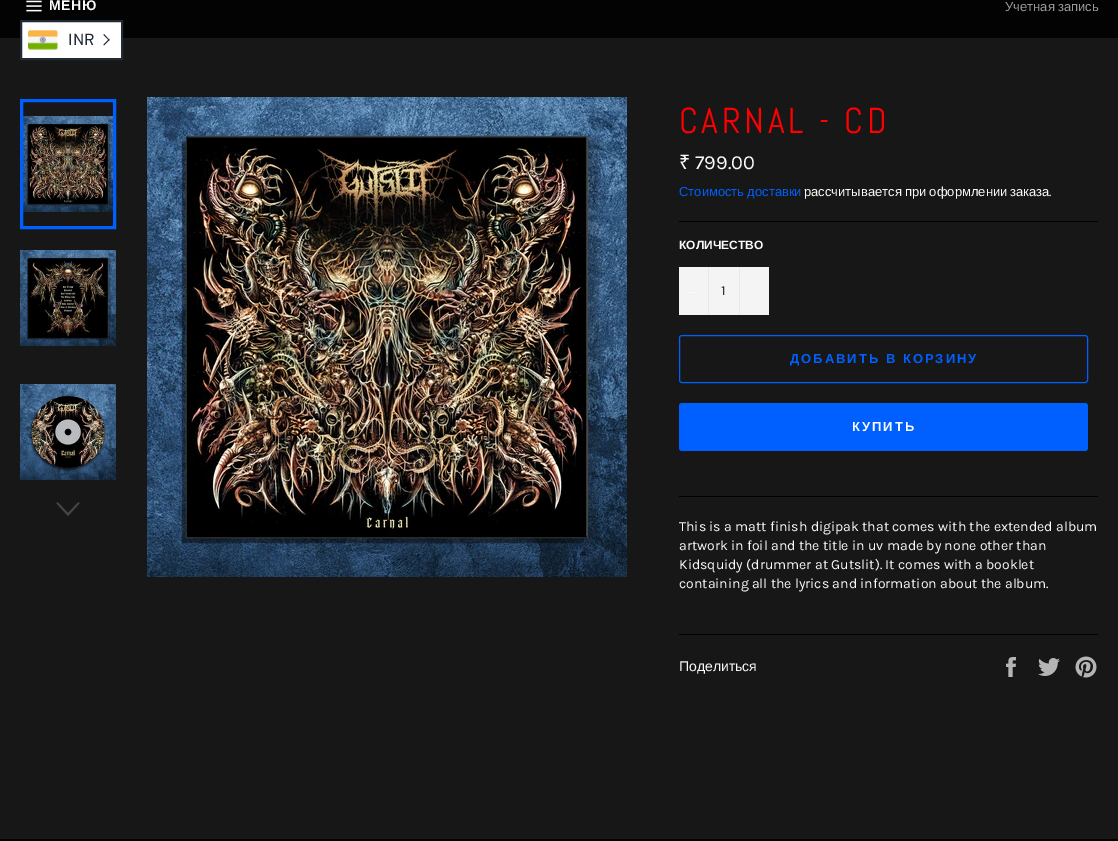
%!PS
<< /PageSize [1118 841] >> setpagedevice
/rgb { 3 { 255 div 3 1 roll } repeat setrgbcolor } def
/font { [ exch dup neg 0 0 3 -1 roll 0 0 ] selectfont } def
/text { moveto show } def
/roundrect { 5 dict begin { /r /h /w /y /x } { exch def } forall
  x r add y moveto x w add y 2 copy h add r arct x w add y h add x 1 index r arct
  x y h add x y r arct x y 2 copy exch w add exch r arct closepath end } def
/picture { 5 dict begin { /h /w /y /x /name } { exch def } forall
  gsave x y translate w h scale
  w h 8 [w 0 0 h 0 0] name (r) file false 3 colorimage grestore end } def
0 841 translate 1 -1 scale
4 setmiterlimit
23 23 23 rgb
0 0 1118 841 rectfill
3 3 3 rgb
0 0 1118 38 rectfill
(img_01.rgb) 26 0 16 12 picture
255 255 255 rgb
21 21 moveto 101 0 rlineto 0 38 rlineto -101 0 rlineto closepath gsave fill grestore
33 43 54 rgb
2 setlinewidth
stroke
(img_02.rgb) 28 30 30 20 picture
103.5 35 moveto 0.5 -1 rlineto 5.5 6 rlineto -0.5 0.5 rlineto closepath fill
103.5 44.5 moveto 5.5 -5.5 rlineto 0.5 1 rlineto -5.5 5.5 rlineto closepath fill
(img_03.rgb) 23 116 90 96 picture
0 96 255 rgb
3 setlinewidth
21.5 100.5 93 127 rectstroke
(img_04.rgb) 20 250 96 96 picture
(img_05.rgb) 20 384 96 96 picture
68 68 68 rgb
78.5 502 moveto 1 1.5 rlineto -11.5 12.5 rlineto -11.5 -12.5 rlineto 1 -1.5 rlineto 10.5 11 rlineto closepath fill
(img_06.rgb) 147 97 480 480 picture
0 0 0 rgb
679 221 419 1 rectfill
244 244 244 rgb
679 267 90 48 rectfill
231 231 231 rgb
708 267 1 48 rectfill
250 250 250 rgb
689 292 8 1 rectfill
231 231 231 rgb
739 267 1 48 rectfill
0 96 255 rgb
1 setlinewidth
679.5 335.5 408 47 2.5 roundrect stroke
679 403 409 48 3 roundrect fill
0 0 0 rgb
679 496 419 1 rectfill
679 634 419 1 rectfill
(img_07.rgb) 1006 657 10 20 picture
(img_08.rgb) 1038 658 22 18 picture
(img_09.rgb) 1075 656 22 22 picture
0 839 1118 2 rectfill
/LiberationSans-Bold 14 font
250 250 250 rgb
49 10 moveto 0.5 0 (МЕНЮ) ashow
/LiberationSans-Regular 13 font
154 154 154 rgb
1005 11 moveto -0.5 0 32 (Учетная запись) widthshow
/Overpass-Regular 16 font
33 43 54 rgb
(INR) 68 45 text
/Abel-Regular 36 font
255 0 0 rgb
679 133 moveto 3.6 0 (CARNAL - CD) ashow
/NotoSans-Regular 20 font
250 250 250 rgb
(₹) 679 169 text
/Karla-Regular 20 font
(799.00) 695 169 text
/LiberationSans-Regular 13 font
0 96 255 rgb
679 196 moveto -0.5 0 32 (Стоимость доставки) widthshow
250 250 250 rgb
804 196 moveto -0.5 0 32 (рассчитывается при оформлении заказа) widthshow
/Karla-Regular 13 font
(.) 1049 196 text
/LiberationSans-Bold 12 font
(КОЛИЧЕСТВО) 679 249 text
/Karla-Regular 14 font
51 51 51 rgb
(1) 721 295 text
/LiberationSans-Bold 13 font
0 96 255 rgb
790 363 moveto 2 0 (ДОБАВИТЬ В КОРЗИНУ) ashow
250 250 250 rgb
852 431 moveto 2 0 (КУПИТЬ) ashow
/Karla-Regular 14 font
(This is a matt finish digipak that comes with the extended album) 679 531 text
(artwork in foil and the title in uv made by none other than) 679 550 text
(Kidsquidy \(drummer at Gutslit\). It comes with a booklet) 679 569 text
(containing all the lyrics and information about the album.) 679 588 text
/LiberationSans-Regular 14 font
(Поделиться) 679 671 text
showpage
